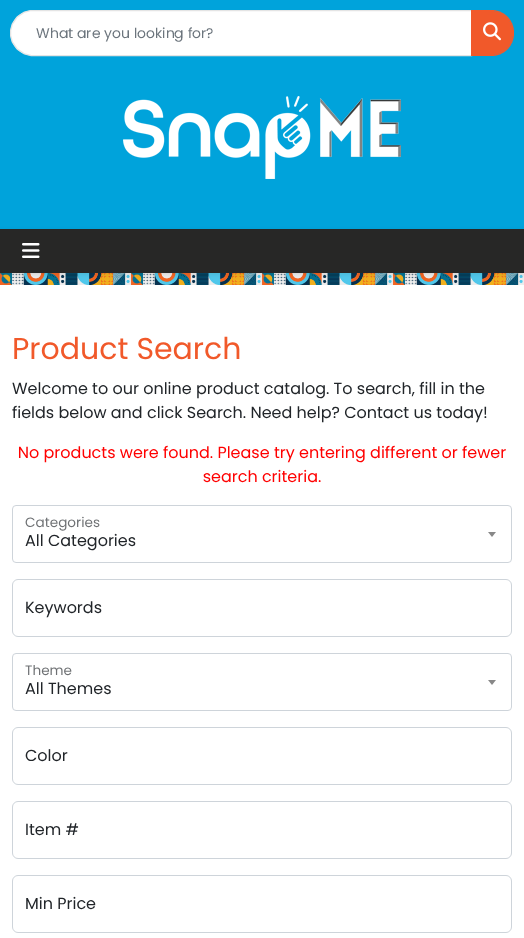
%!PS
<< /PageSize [524 938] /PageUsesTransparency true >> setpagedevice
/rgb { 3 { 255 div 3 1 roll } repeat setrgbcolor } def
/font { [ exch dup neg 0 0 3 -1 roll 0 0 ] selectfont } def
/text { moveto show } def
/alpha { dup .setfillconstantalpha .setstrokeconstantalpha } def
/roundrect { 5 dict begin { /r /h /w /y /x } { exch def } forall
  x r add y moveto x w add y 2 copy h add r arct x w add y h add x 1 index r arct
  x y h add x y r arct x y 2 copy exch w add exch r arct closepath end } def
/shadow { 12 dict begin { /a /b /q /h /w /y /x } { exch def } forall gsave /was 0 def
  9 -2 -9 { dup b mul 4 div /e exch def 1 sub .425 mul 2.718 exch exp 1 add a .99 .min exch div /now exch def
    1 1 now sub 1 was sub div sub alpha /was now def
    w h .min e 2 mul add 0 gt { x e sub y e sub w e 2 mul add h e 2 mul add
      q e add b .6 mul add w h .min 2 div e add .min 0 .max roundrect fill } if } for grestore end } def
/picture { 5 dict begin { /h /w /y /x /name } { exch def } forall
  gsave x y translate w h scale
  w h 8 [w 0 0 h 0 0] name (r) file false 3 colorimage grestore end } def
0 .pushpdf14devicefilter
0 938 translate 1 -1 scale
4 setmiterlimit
255 255 255 rgb
0 0 524 938 rectfill
0 163 219 rgb
0 0 524 229 rectfill
255 255 255 rgb
33 10.5 moveto 438.5 0 rlineto 0 45 rlineto -438.5 0 rlineto -12.5 0 -22.5 -10 -22.5 -22.5 rcurveto 0 -12.5 10 -22.5 22.5 -22.5 rcurveto closepath gsave fill grestore
228 228 228 rgb
stroke
241 89 42 rgb
471 11 moveto 20 0 rlineto 12 0 22 10 22 22 rcurveto 0 12 -10 22 -22 22 rcurveto -20 0 rlineto closepath fill
471 10 moveto 20 0 rlineto 13 0 23 10 23 23 rcurveto 0 13 -10 23 -23 23 rcurveto -20 0 rlineto closepath 471 11 moveto 20 0 rlineto 12 0 22 10 22 22 rcurveto 0 12 -10 22 -22 22 rcurveto -20 0 rlineto closepath eofill
(img_01.rgb) 483 22 18 19 picture
(img_02.rgb) 123 96 278 83 picture
(img_04.rgb) 0 273 524 12 picture
0 0 0 rgb
0 231 524 44 0 2 0.07 shadow
39 39 38 rgb
0 229 524 44 rectfill
(img_03.rgb) 22 243 18 15 picture
(img_05.rgb) 12 336 500 597 picture
/Poppins-Regular 14 font
108 117 125 rgb
(What are you looking for?) 36 38 text
.poppdf14devicefilter showpage
